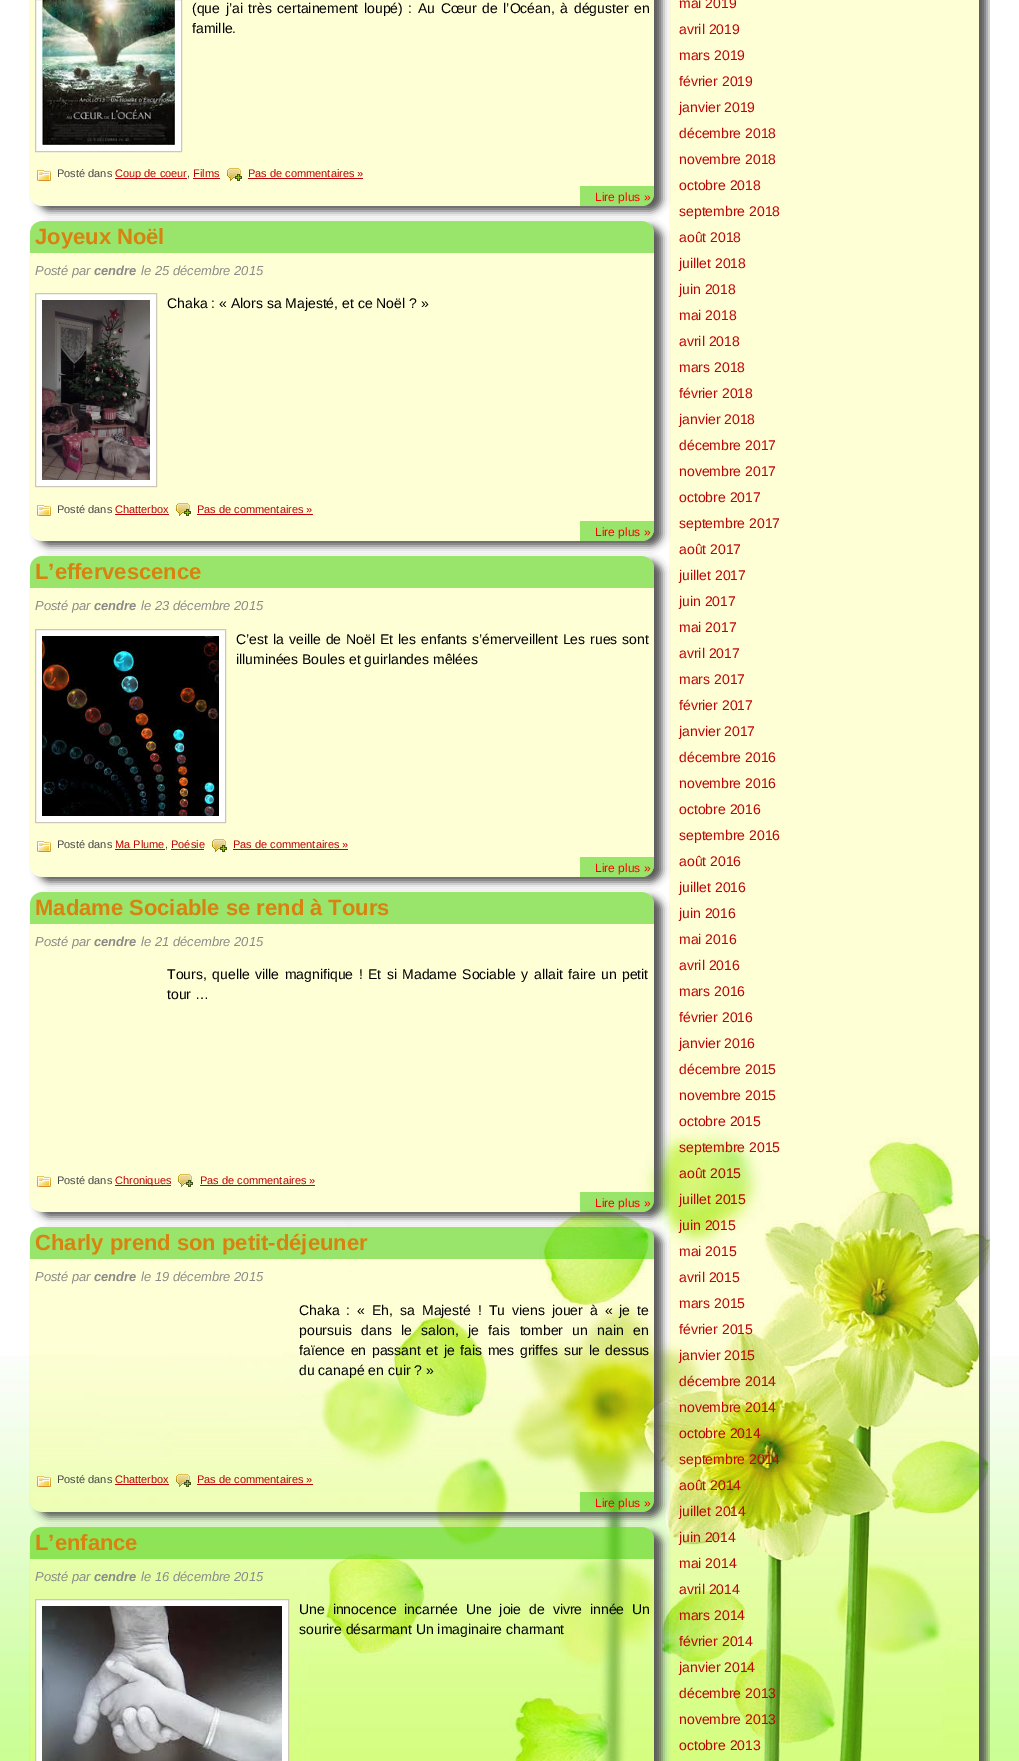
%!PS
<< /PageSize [1019 1761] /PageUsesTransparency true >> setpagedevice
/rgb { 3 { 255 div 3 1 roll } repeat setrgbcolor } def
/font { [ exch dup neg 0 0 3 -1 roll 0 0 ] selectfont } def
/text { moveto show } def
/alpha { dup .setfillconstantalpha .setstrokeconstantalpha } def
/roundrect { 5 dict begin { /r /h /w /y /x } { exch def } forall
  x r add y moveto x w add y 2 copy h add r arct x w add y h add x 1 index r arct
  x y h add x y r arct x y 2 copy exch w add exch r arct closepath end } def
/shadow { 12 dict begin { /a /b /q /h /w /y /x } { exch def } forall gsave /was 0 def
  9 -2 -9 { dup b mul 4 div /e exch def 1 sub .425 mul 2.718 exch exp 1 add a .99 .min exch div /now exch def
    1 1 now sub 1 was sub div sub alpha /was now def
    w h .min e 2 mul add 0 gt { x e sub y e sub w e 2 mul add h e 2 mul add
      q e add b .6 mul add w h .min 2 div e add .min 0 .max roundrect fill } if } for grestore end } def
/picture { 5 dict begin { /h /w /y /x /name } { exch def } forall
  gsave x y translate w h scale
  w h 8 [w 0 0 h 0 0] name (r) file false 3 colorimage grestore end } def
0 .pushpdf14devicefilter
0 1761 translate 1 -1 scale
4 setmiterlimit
255 255 255 rgb
0 0 1019 1761 rectfill
(img_01.rgb) 0 1356 1019 405 picture
(img_02.rgb) 29 1125 961 636 picture
gsave
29 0 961 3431 rectclip
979 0 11 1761 rectclip
85 85 85 rgb
677 -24 310 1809 12 4 1 shadow
grestore
0.2 alpha
255 255 50 rgb
669 0 310 1761 rectfill
gsave
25 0 moveto 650 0 rlineto 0 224 rlineto -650 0 rlineto closepath 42 -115 moveto 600 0 rlineto 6.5 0 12 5.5 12 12 rcurveto 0 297 rlineto 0 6.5 -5.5 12 -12 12 rcurveto -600 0 rlineto -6.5 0 -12 -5.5 -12 -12 rcurveto 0 -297 rlineto 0 -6.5 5.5 -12 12 -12 rcurveto closepath eoclip newpath
1 alpha
85 85 85 rgb
38 -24 624 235 12 4 1 shadow
grestore
1 alpha
(img_03.rgb) 30 0 624 206 picture
255 255 255 rgb
35.5 -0.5 moveto 146 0 rlineto 0 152 rlineto -146 0 rlineto closepath gsave fill grestore
205 198 187 rgb
stroke
(img_04.rgb) 42 0 133 145 picture
(img_05.rgb) 37 170 14 11 picture
190 4 4 rgb
115 178 72 1 rectfill
193 178 27 1 rectfill
(img_06.rgb) 227 168 15 13 picture
248 178 115 1 rectfill
(img_07.rgb) 580 186 74 20 picture
gsave
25 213 moveto 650 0 rlineto 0 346 rlineto -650 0 rlineto closepath 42 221 moveto 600 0 rlineto 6.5 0 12 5.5 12 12 rcurveto 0 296 rlineto 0 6.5 -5.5 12 -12 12 rcurveto -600 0 rlineto -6.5 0 -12 -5.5 -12 -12 rcurveto 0 -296 rlineto 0 -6.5 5.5 -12 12 -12 rcurveto closepath eoclip newpath
85 85 85 rgb
38 226 624 320 12 4 1 shadow
grestore
(img_08.rgb) 30 221 624 320 picture
(img_09.rgb) 30 221 624 32 picture
255 255 255 rgb
35.5 293.5 moveto 121 0 rlineto 0 193 rlineto -121 0 rlineto closepath gsave fill grestore
205 198 187 rgb
stroke
(img_10.rgb) 42 300 108 180 picture
(img_05.rgb) 37 505 14 11 picture
190 4 4 rgb
115 514 54 1 rectfill
(img_06.rgb) 176 503 15 13 picture
197 514 116 1 rectfill
(img_07.rgb) 580 521 74 20 picture
gsave
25 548 moveto 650 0 rlineto 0 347 rlineto -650 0 rlineto closepath 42 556 moveto 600 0 rlineto 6.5 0 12 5.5 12 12 rcurveto 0 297 rlineto 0 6.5 -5.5 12 -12 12 rcurveto -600 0 rlineto -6.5 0 -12 -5.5 -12 -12 rcurveto 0 -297 rlineto 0 -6.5 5.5 -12 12 -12 rcurveto closepath eoclip newpath
85 85 85 rgb
38 561 624 321 12 4 1 shadow
grestore
(img_11.rgb) 30 556 624 321 picture
(img_09.rgb) 30 556 624 32 picture
255 255 255 rgb
35.5 629.5 moveto 190 0 rlineto 0 193 rlineto -190 0 rlineto closepath gsave fill grestore
205 198 187 rgb
stroke
(img_12.rgb) 42 636 177 180 picture
(img_05.rgb) 37 841 14 11 picture
190 4 4 rgb
115 849 50 1 rectfill
171 849 33 1 rectfill
(img_06.rgb) 212 839 15 13 picture
233 849 115 1 rectfill
(img_13.rgb) 580 857 74 20 picture
gsave
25 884 moveto 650 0 rlineto 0 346 rlineto -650 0 rlineto closepath 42 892 moveto 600 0 rlineto 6.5 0 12 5.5 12 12 rcurveto 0 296 rlineto 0 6.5 -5.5 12 -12 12 rcurveto -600 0 rlineto -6.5 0 -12 -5.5 -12 -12 rcurveto 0 -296 rlineto 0 -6.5 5.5 -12 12 -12 rcurveto closepath eoclip newpath
85 85 85 rgb
38 897 624 320 12 4 1 shadow
grestore
(img_14.rgb) 30 892 624 320 picture
(img_09.rgb) 30 892 624 32 picture
(img_05.rgb) 37 1176 14 11 picture
115 1185 56 1 rectfill
(img_06.rgb) 178 1174 15 13 picture
200 1185 115 1 rectfill
(img_15.rgb) 580 1192 74 20 picture
gsave
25 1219 moveto 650 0 rlineto 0 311 rlineto -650 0 rlineto closepath 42 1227 moveto 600 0 rlineto 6.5 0 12 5.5 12 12 rcurveto 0 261 rlineto 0 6.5 -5.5 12 -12 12 rcurveto -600 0 rlineto -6.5 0 -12 -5.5 -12 -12 rcurveto 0 -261 rlineto 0 -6.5 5.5 -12 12 -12 rcurveto closepath eoclip newpath
85 85 85 rgb
38 1232 624 285 12 4 1 shadow
grestore
(img_16.rgb) 30 1227 624 285 picture
(img_17.rgb) 30 1227 624 32 picture
(img_18.rgb) 37 1476 14 11 picture
115 1484 54 1 rectfill
(img_19.rgb) 176 1474 15 13 picture
197 1484 116 1 rectfill
(img_20.rgb) 580 1492 74 20 picture
gsave
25 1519 moveto 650 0 rlineto 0 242 rlineto -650 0 rlineto closepath 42 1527 moveto 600 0 rlineto 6.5 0 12 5.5 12 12 rcurveto 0 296 rlineto 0 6.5 -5.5 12 -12 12 rcurveto -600 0 rlineto -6.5 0 -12 -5.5 -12 -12 rcurveto 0 -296 rlineto 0 -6.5 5.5 -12 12 -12 rcurveto closepath eoclip newpath
85 85 85 rgb
38 1532 624 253 12 4 1 shadow
grestore
(img_21.rgb) 30 1527 624 234 picture
(img_22.rgb) 30 1527 624 32 picture
255 255 255 rgb
35.5 1599.5 moveto 253 0 rlineto 0 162 rlineto -253 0 rlineto closepath gsave fill grestore
205 198 187 rgb
stroke
(img_23.rgb) 42 1606 240 155 picture
/LiberationSans-Regular 14 font
0 0 0 rgb
192 13 moveto 1.75 0 32 (\(que j’ai très certainement loupé\) : Au Cœur de l’Océan, à déguster en) widthshow
(famille.) 192 33 text
/LiberationSans-Regular 11 font
71 71 71 rgb
(Posté dans) 57 177 text
190 4 4 rgb
(Coup de coeur) 115 177 text
71 71 71 rgb
(,) 187 177 text
190 4 4 rgb
(Films) 193 177 text
(Pas de commentaires ») 248 177 text
/LiberationSans-Regular 12 font
255 0 0 rgb
(Lire plus ») 595 201 text
/LiberationSans-Bold 22 font
216 130 16 rgb
(Joyeux Noël) 35 244 text
/LiberationSans-Italic 13 font
138 138 138 rgb
(Posté par) 35 275 text
/LiberationSans-BoldItalic 13 font
(cendre) 94 275 text
/LiberationSans-Italic 13 font
(le 25 décembre 2015) 141 275 text
/LiberationSans-Regular 14 font
0 0 0 rgb
(Chaka : « Alors sa Majesté, et ce Noël ? ») 167 308 text
/LiberationSans-Regular 11 font
71 71 71 rgb
(Posté dans) 57 513 text
190 4 4 rgb
(Chatterbox) 115 513 text
(Pas de commentaires ») 197 513 text
/LiberationSans-Regular 12 font
255 0 0 rgb
(Lire plus ») 595 536 text
/LiberationSans-Bold 22 font
216 130 16 rgb
(L’effervescence) 35 579 text
/LiberationSans-Italic 13 font
138 138 138 rgb
(Posté par) 35 610 text
/LiberationSans-BoldItalic 13 font
(cendre) 94 610 text
/LiberationSans-Italic 13 font
(le 23 décembre 2015) 141 610 text
/LiberationSans-Regular 14 font
0 0 0 rgb
236 644 moveto 1.1 0 32 (C’est la veille de Noël Et les enfants s’émerveillent Les rues sont) widthshow
(illuminées Boules et guirlandes mêlées) 236 664 text
/LiberationSans-Regular 11 font
71 71 71 rgb
(Posté dans) 57 848 text
190 4 4 rgb
(Ma Plume) 115 848 text
71 71 71 rgb
(,) 165 848 text
190 4 4 rgb
(Poésie) 171 848 text
(Pas de commentaires ») 233 848 text
/LiberationSans-Regular 12 font
255 0 0 rgb
(Lire plus ») 595 872 text
/LiberationSans-Bold 22 font
216 130 16 rgb
(Madame Sociable se rend à Tours) 35 915 text
/LiberationSans-Italic 13 font
138 138 138 rgb
(Posté par) 35 946 text
/LiberationSans-BoldItalic 13 font
(cendre) 94 946 text
/LiberationSans-Italic 13 font
(le 21 décembre 2015) 141 946 text
/LiberationSans-Regular 14 font
0 0 0 rgb
167 979 moveto 1.6 0 32 (Tours, quelle ville magnifique ! Et si Madame Sociable y allait faire un petit) widthshow
(tour …) 167 999 text
/LiberationSans-Regular 11 font
71 71 71 rgb
(Posté dans) 57 1184 text
190 4 4 rgb
(Chroniques) 115 1184 text
(Pas de commentaires ») 200 1184 text
/LiberationSans-Regular 12 font
255 0 0 rgb
(Lire plus ») 595 1207 text
/LiberationSans-Bold 22 font
216 130 16 rgb
(Charly prend son petit-déjeuner) 35 1250 text
/LiberationSans-Italic 13 font
138 138 138 rgb
(Posté par) 35 1281 text
/LiberationSans-BoldItalic 13 font
(cendre) 94 1281 text
/LiberationSans-Italic 13 font
(le 19 décembre 2015) 141 1281 text
/LiberationSans-Regular 14 font
0 0 0 rgb
299 1315 moveto 3.1 0 32 (Chaka : « Eh, sa Majesté ! Tu viens jouer à « je te) widthshow
299 1335 moveto 5.5 0 32 (poursuis dans le salon, je fais tomber un nain en) widthshow
299 1355 moveto 1.75 0 32 (faïence en passant et je fais mes griffes sur le dessus) widthshow
(du canapé en cuir ? ») 299 1375 text
/LiberationSans-Regular 11 font
71 71 71 rgb
(Posté dans) 57 1483 text
190 4 4 rgb
(Chatterbox) 115 1483 text
(Pas de commentaires ») 197 1483 text
/LiberationSans-Regular 12 font
255 0 0 rgb
(Lire plus ») 595 1507 text
/LiberationSans-Bold 22 font
216 130 16 rgb
(L’enfance) 35 1550 text
/LiberationSans-Italic 13 font
138 138 138 rgb
(Posté par) 35 1581 text
/LiberationSans-BoldItalic 13 font
(cendre) 94 1581 text
/LiberationSans-Italic 13 font
(le 16 décembre 2015) 141 1581 text
/LiberationSans-Regular 14 font
0 0 0 rgb
299 1614 moveto 4 0 32 (Une innocence incarnée Une joie de vivre innée Un) widthshow
(sourire désarmant Un imaginaire charmant) 299 1634 text
190 4 4 rgb
(mai 2019) 679 8 text
(avril 2019) 679 34 text
(mars 2019) 679 60 text
(février 2019) 679 86 text
(janvier 2019) 679 112 text
(décembre 2018) 679 138 text
(novembre 2018) 679 164 text
(octobre 2018) 679 190 text
(septembre 2018) 679 216 text
(août 2018) 679 242 text
(juillet 2018) 679 268 text
(juin 2018) 679 294 text
(mai 2018) 679 320 text
(avril 2018) 679 346 text
(mars 2018) 679 372 text
(février 2018) 679 398 text
(janvier 2018) 679 424 text
(décembre 2017) 679 450 text
(novembre 2017) 679 476 text
(octobre 2017) 679 502 text
(septembre 2017) 679 528 text
(août 2017) 679 554 text
(juillet 2017) 679 580 text
(juin 2017) 679 606 text
(mai 2017) 679 632 text
(avril 2017) 679 658 text
(mars 2017) 679 684 text
(février 2017) 679 710 text
(janvier 2017) 679 736 text
(décembre 2016) 679 762 text
(novembre 2016) 679 788 text
(octobre 2016) 679 814 text
(septembre 2016) 679 840 text
(août 2016) 679 866 text
(juillet 2016) 679 892 text
(juin 2016) 679 918 text
(mai 2016) 679 944 text
(avril 2016) 679 970 text
(mars 2016) 679 996 text
(février 2016) 679 1022 text
(janvier 2016) 679 1048 text
(décembre 2015) 679 1074 text
(novembre 2015) 679 1100 text
(octobre 2015) 679 1126 text
(septembre 2015) 679 1152 text
(août 2015) 679 1178 text
(juillet 2015) 679 1204 text
(juin 2015) 679 1230 text
(mai 2015) 679 1256 text
(avril 2015) 679 1282 text
(mars 2015) 679 1308 text
(février 2015) 679 1334 text
(janvier 2015) 679 1360 text
(décembre 2014) 679 1386 text
(novembre 2014) 679 1412 text
(octobre 2014) 679 1438 text
(septembre 2014) 679 1464 text
(août 2014) 679 1490 text
(juillet 2014) 679 1516 text
(juin 2014) 679 1542 text
(mai 2014) 679 1568 text
(avril 2014) 679 1594 text
(mars 2014) 679 1620 text
(février 2014) 679 1646 text
(janvier 2014) 679 1672 text
(décembre 2013) 679 1698 text
(novembre 2013) 679 1724 text
(octobre 2013) 679 1750 text
.poppdf14devicefilter showpage
